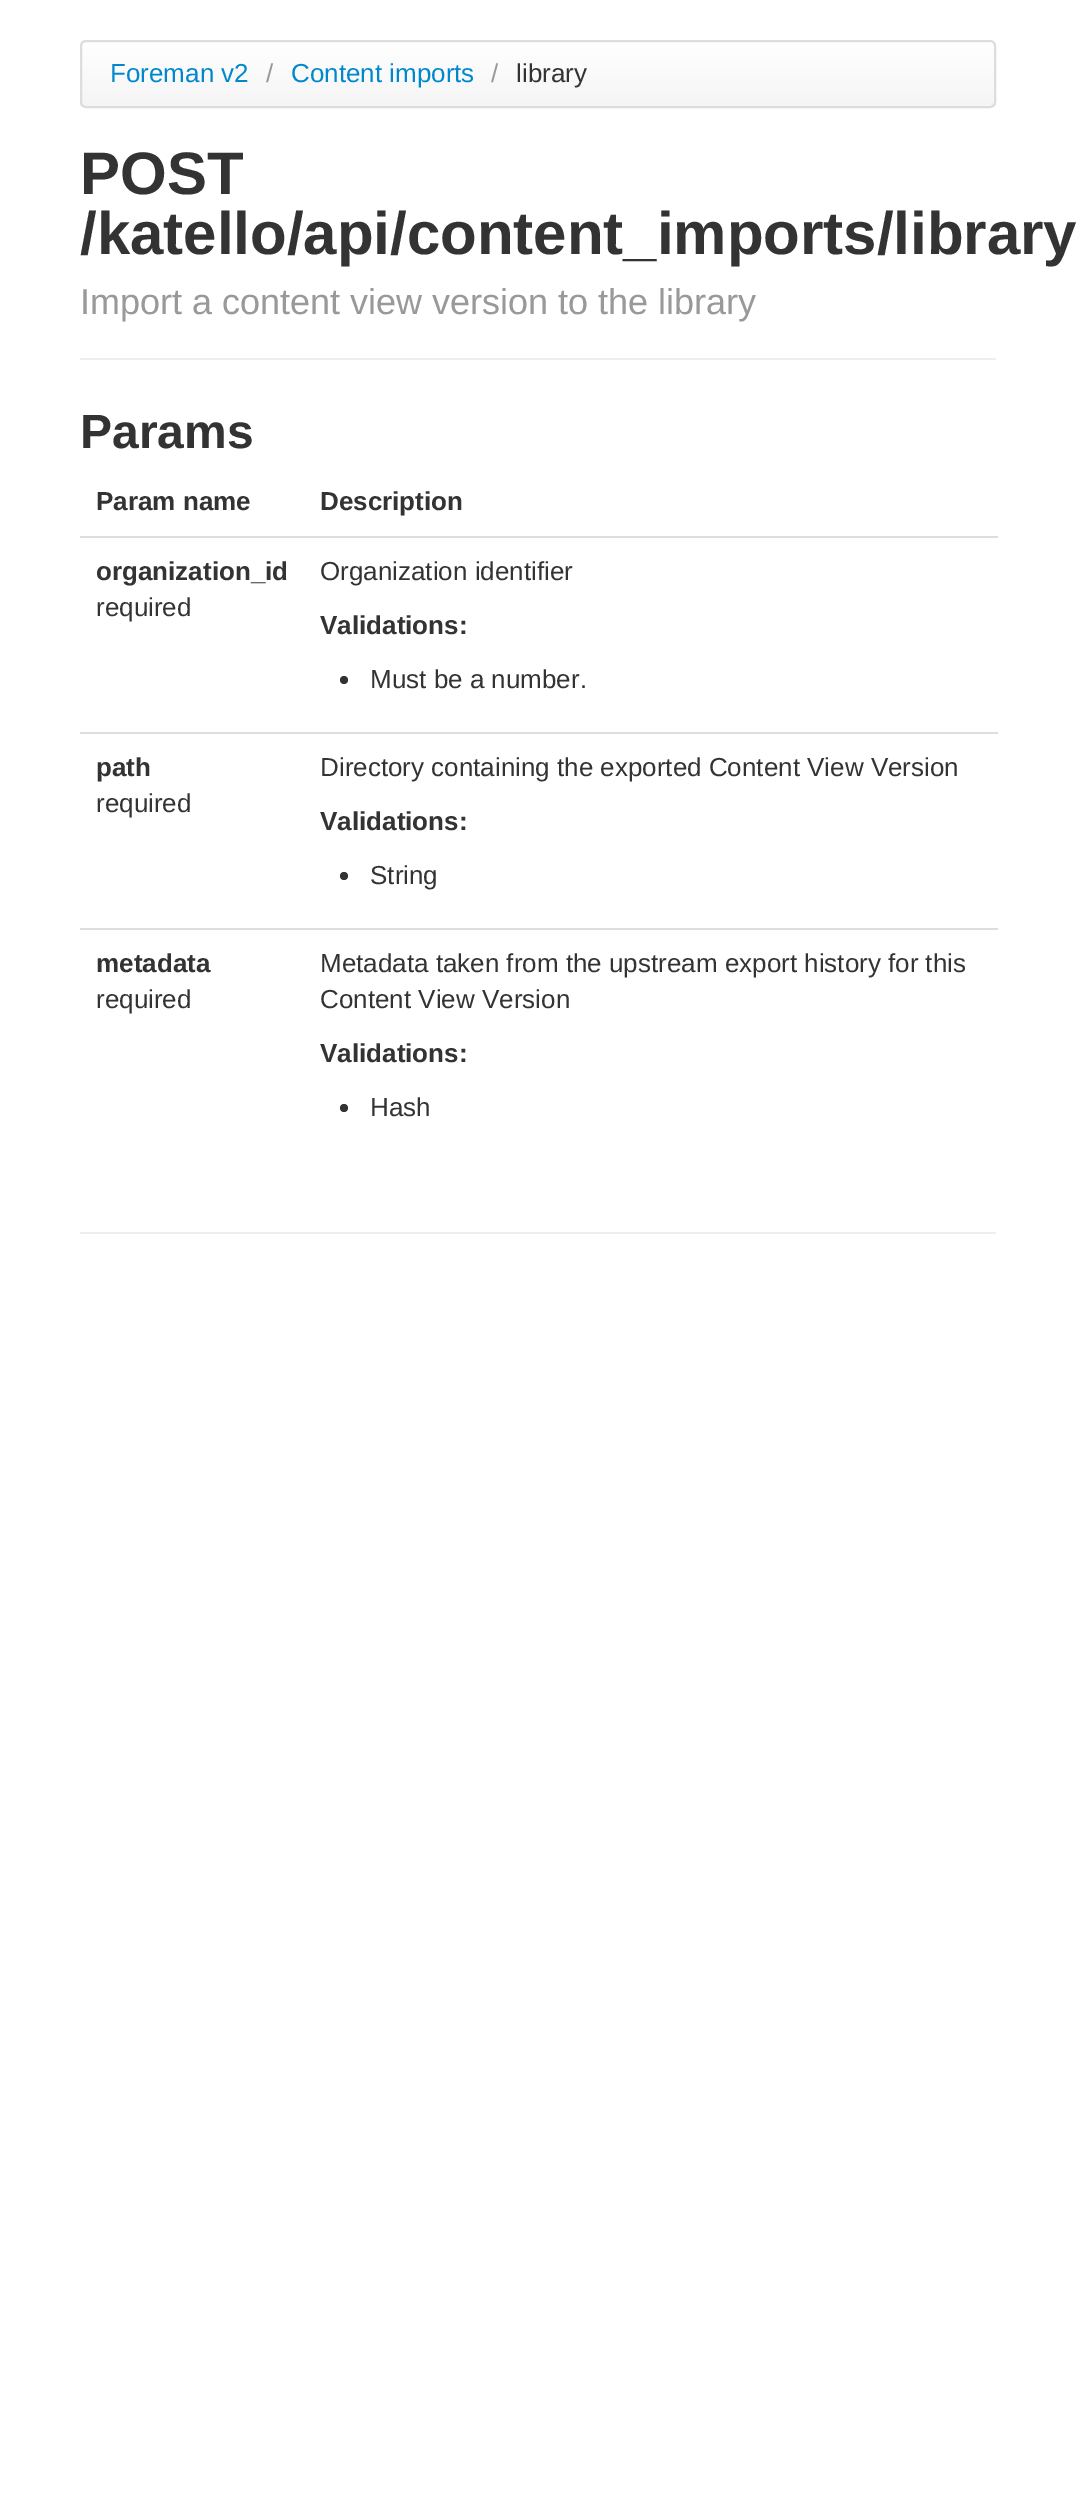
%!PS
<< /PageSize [1076 2520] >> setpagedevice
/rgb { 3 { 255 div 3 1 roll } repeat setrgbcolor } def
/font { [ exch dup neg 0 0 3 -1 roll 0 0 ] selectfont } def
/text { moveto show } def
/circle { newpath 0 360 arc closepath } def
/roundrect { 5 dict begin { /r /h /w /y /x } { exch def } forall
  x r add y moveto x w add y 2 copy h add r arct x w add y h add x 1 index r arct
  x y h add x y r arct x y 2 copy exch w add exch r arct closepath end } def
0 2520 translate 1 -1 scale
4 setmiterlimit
255 255 255 rgb
0 0 1076 2520 rectfill
gsave
80 40 916 68 6 roundrect clip newpath
gsave 80 42 moveto 916 0 rlineto 0 64 rlineto -916 0 rlineto closepath clip newpath
<< /ShadingType 2 /ColorSpace /DeviceRGB /Coords [538 42 538 106] /Extend [true true] /Function << /FunctionType 2 /Domain [0 1] /C0 [1 1 1] /C1 [0.961 0.961 0.961] /N 1 >> >> shfill grestore
grestore
221 221 221 rgb
2 setlinewidth
81 41 914 66 5 roundrect stroke
238 238 238 rgb
80 358 916 2 rectfill
221 221 221 rgb
80 536 918 2 rectfill
51 51 51 rgb
344 680 4 circle fill
221 221 221 rgb
80 732 918 2 rectfill
51 51 51 rgb
344 876 4 circle fill
221 221 221 rgb
80 928 918 2 rectfill
51 51 51 rgb
344 1108 4 circle fill
238 238 238 rgb
80 1232 916 2 rectfill
/LiberationSans-Regular 26 font
0 136 204 rgb
(Foreman v2) 110 82 text
153 153 153 rgb
(/) 266 82 text
0 136 204 rgb
(Content imports) 291 82 text
153 153 153 rgb
(/) 491 82 text
51 51 51 rgb
(library) 516 82 text
/LiberationSans-Bold 60 font
(POST) 80 194 text
(/katello/api/content_imports/library) 80 254 text
/LiberationSans-Regular 36 font
153 153 153 rgb
(Import a content view version to the library) 80 314 text
/LiberationSans-Bold 48 font
51 51 51 rgb
(Params) 80 448 text
/LiberationSans-Bold 26 font
(Param name) 96 510 text
(Description) 320 510 text
(organization_id) 96 580 text
/LiberationSans-Regular 26 font
(required) 96 616 text
(Organization identifier) 320 580 text
/LiberationSans-Bold 26 font
(Validations:) 320 634 text
/LiberationSans-Regular 26 font
(Must be a number.) 370 688 text
/LiberationSans-Bold 26 font
(path) 96 776 text
/LiberationSans-Regular 26 font
(required) 96 812 text
(Directory containing the exported Content View Version) 320 776 text
/LiberationSans-Bold 26 font
(Validations:) 320 830 text
/LiberationSans-Regular 26 font
(String) 370 884 text
/LiberationSans-Bold 26 font
(metadata) 96 972 text
/LiberationSans-Regular 26 font
(required) 96 1008 text
(Metadata taken from the upstream export history for this) 320 972 text
(Content View Version) 320 1008 text
/LiberationSans-Bold 26 font
(Validations:) 320 1062 text
/LiberationSans-Regular 26 font
(Hash) 370 1116 text
showpage
